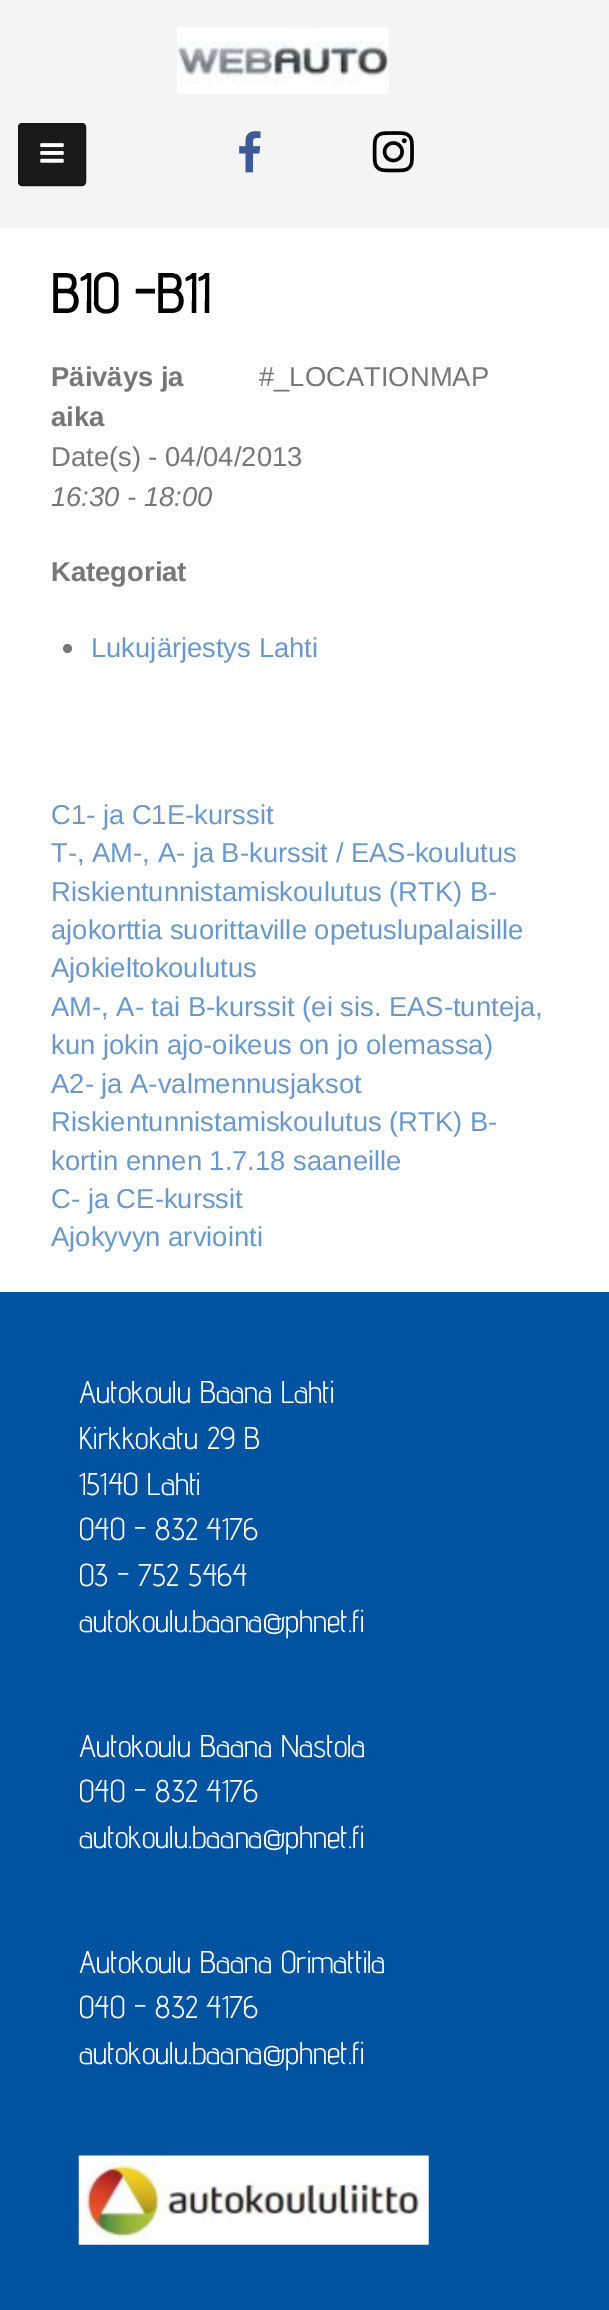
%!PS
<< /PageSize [609 2310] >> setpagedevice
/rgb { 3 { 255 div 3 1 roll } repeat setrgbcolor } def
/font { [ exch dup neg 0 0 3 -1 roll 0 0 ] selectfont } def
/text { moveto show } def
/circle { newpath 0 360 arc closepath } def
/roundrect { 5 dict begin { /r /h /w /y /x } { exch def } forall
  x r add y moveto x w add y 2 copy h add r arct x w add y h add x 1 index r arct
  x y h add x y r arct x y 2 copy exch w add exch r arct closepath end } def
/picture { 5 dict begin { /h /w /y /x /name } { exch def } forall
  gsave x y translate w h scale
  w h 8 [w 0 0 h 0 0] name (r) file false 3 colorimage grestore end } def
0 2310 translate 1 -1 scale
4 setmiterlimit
255 255 255 rgb
0 0 609 2310 rectfill
244 244 244 rgb
0 0 609 228 rectfill
(img_01.rgb) 177 27 212 67 picture
(img_02.rgb) 239 131 22 42 picture
(img_03.rgb) 372 131 42 42 picture
26 26 26 rgb
19 124 66 61 3 roundrect gsave fill grestore
22 22 22 rgb
2 setlinewidth
stroke
(img_04.rgb) 40 143 24 20 picture
119 119 119 rgb
67.5 648.5 4.5 circle fill
0 83 161 rgb
0 1292 609 1018 rectfill
(img_05.rgb) 78 2155 351 90 picture
/AdventPro-Bold 55 font
0 0 0 rgb
(B10 -B11) 51 313 text
/LiberationSans-Bold 27.4 font
119 119 119 rgb
(Päiväys ja) 51 386 text
(aika) 51 426 text
/LiberationSans-Regular 27.4 font
(Date\(s\) - 04/04/2013) 51 466 text
/LiberationSans-Italic 27.4 font
(16:30 - 18:00) 51 506 text
/LiberationSans-Regular 27.4 font
(#_LOCATIONMAP) 259 386 text
/LiberationSans-Bold 27.4 font
(Kategoriat) 51 581 text
/LiberationSans-Regular 27.4 font
105 152 201 rgb
(Lukujärjestys Lahti) 91 657 text
(C1- ja C1E-kurssit) 51 824 text
(T-, AM-, A- ja B-kurssit / EAS-koulutus) 51 862 text
(Riskientunnistamiskoulutus \(RTK\) B-) 51 901 text
(ajokorttia suorittaville opetuslupalaisille) 51 939 text
(Ajokieltokoulutus) 51 977 text
(AM-, A- tai B-kurssit \(ei sis. EAS-tunteja,) 51 1016 text
(kun jokin ajo-oikeus on jo olemassa\)) 51 1054 text
(A2- ja A-valmennusjaksot) 51 1093 text
(Riskientunnistamiskoulutus \(RTK\) B-) 51 1131 text
(kortin ennen 1.7.18 saaneille) 51 1170 text
(C- ja CE-kurssit) 51 1208 text
(Ajokyvyn arviointi) 51 1246 text
/AdventPro-Regular 31.5 font
255 255 255 rgb
(Autokoulu Baana Lahti) 79 1403 text
(Kirkkokatu 29 B) 79 1449 text
(15140 Lahti) 79 1495 text
(040 - 832 4176) 79 1540 text
(03 - 752 5464) 79 1586 text
(autokoulu.baana@phnet.fi) 79 1632 text
(Autokoulu Baana Nastola) 79 1757 text
(040 - 832 4176) 79 1802 text
(autokoulu.baana@phnet.fi) 79 1848 text
(Autokoulu Baana Orimattila) 79 1973 text
(040 - 832 4176) 79 2018 text
(autokoulu.baana@phnet.fi) 79 2064 text
showpage
